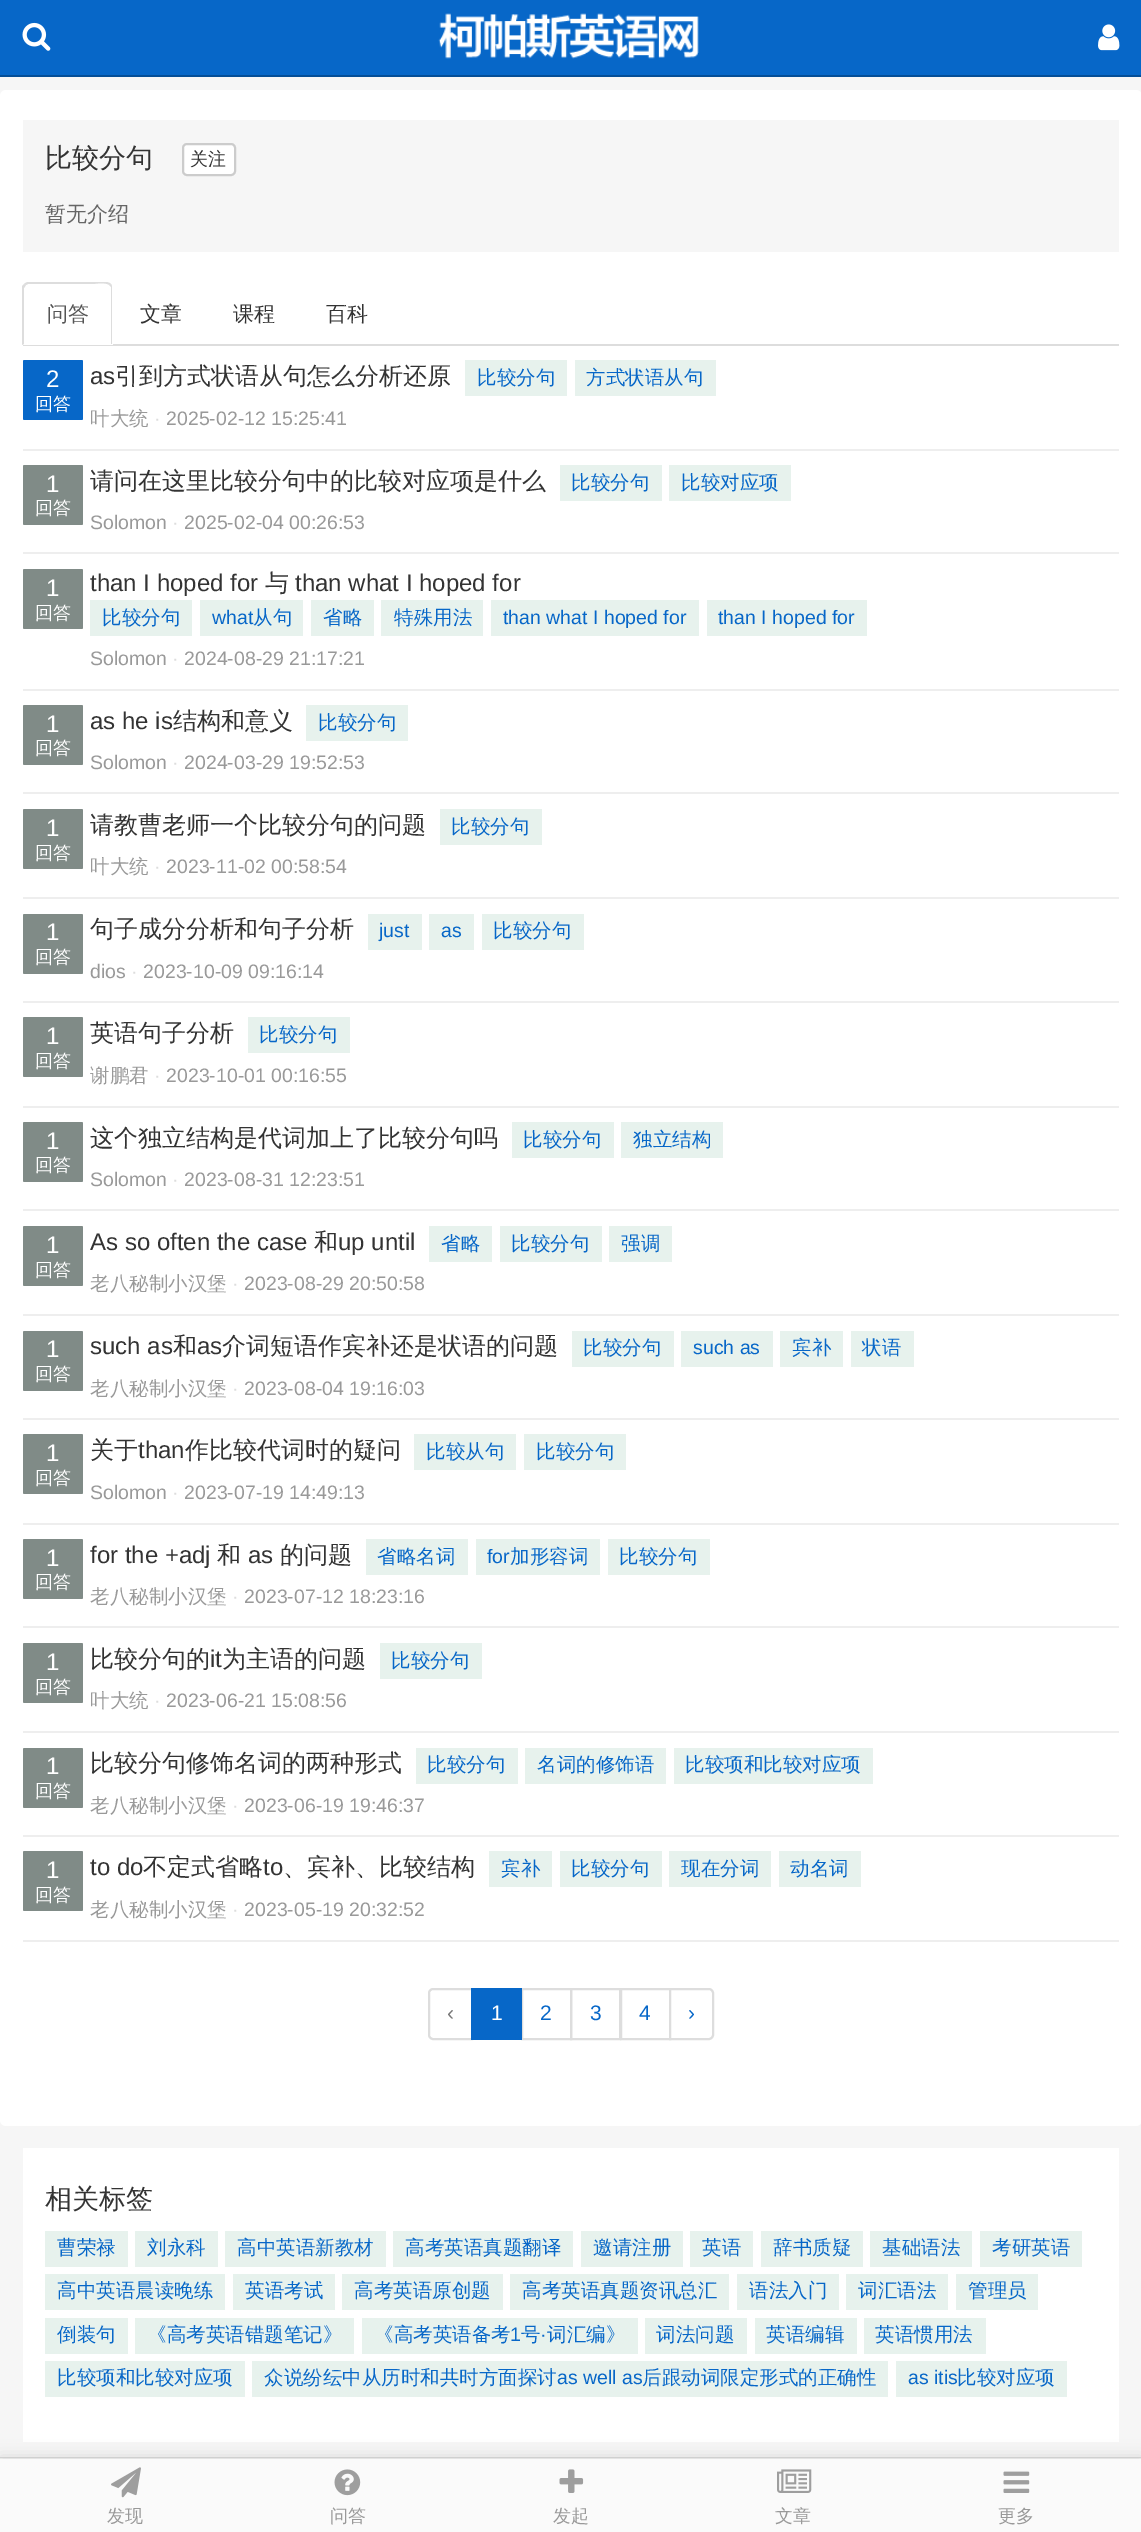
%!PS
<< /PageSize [1141 2532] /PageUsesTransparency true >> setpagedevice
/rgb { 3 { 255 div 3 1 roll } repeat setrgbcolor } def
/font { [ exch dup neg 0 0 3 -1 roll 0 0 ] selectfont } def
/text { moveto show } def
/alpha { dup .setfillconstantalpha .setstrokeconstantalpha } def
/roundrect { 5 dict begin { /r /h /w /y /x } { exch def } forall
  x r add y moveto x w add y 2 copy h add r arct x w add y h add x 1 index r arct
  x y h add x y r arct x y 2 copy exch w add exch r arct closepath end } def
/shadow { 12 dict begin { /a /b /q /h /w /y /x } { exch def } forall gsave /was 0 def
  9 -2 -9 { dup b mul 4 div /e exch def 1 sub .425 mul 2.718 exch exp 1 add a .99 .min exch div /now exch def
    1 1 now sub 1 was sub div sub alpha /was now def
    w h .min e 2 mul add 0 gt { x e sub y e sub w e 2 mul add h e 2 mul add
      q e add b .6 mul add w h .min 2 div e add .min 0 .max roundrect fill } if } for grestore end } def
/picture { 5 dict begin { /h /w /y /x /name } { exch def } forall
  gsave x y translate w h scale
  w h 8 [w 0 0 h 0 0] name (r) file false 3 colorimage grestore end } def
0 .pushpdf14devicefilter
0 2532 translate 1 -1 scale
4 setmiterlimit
246 246 246 rgb
0 0 1141 2532 rectfill
255 255 255 rgb
0 90 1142 2036 6 roundrect fill
246 246 246 rgb
23 120 1096 132 rectfill
255 255 255 rgb
183 144 52 31 4 roundrect gsave fill grestore
204 204 204 rgb
2 setlinewidth
stroke
221 221 221 rgb
23 344 1096 2 rectfill
255 255 255 rgb
29 282 moveto 78 0 rlineto 3.5 0 6 2.5 6 6 rcurveto 0 57 rlineto -90 0 rlineto 0 -57 rlineto 0 -3.5 2.5 -6 6 -6 rcurveto closepath fill
221 221 221 rgb
28 282 moveto -1 0 -3 1 -4 2 rcurveto 2 1 rlineto 2 -1 rlineto 65 0 rlineto 1 0 13 -2 16 1 rcurveto 2 -1 rlineto -1 -1 -3 -2 -5 -2 rcurveto closepath fill
111 284 moveto 1 1 1 3 1 4 rcurveto 0 56 rlineto -1 0 rlineto 0 -57 rlineto -2 -2 rlineto closepath fill
22 345 moveto 0 -59 rlineto 2 -2 rlineto 2 1 rlineto -2 3 rlineto 0 56 rlineto closepath fill
238 238 238 rgb
23 449 1096 2 rectfill
7 103 200 rgb
23 360 60 60 1.5 roundrect fill
231 242 237 rgb
465 360 102 36 rectfill
575 360 141 36 rectfill
238 238 238 rgb
23 552 1096 2 rectfill
128 139 135 rgb
23 465 60 60 1.5 roundrect fill
231 242 237 rgb
560 465 102 36 rectfill
669 465 122 36 rectfill
238 238 238 rgb
23 689 1096 2 rectfill
128 139 135 rgb
23 569 60 60 1.5 roundrect fill
231 242 237 rgb
90 600 102 36 rectfill
200 600 103 36 rectfill
311 600 63 36 rectfill
381 600 102 36 rectfill
491 600 208 36 rectfill
707 600 160 36 rectfill
238 238 238 rgb
23 792 1096 2 rectfill
128 139 135 rgb
23 705 60 60 1.5 roundrect fill
231 242 237 rgb
306 705 102 36 rectfill
238 238 238 rgb
23 897 1096 2 rectfill
128 139 135 rgb
23 809 60 60 1.5 roundrect fill
231 242 237 rgb
440 809 102 36 rectfill
238 238 238 rgb
23 1001 1096 2 rectfill
128 139 135 rgb
23 914 60 60 1.5 roundrect fill
231 242 237 rgb
368 914 54 36 rectfill
429 914 45 36 rectfill
482 914 102 36 rectfill
238 238 238 rgb
23 1106 1096 2 rectfill
128 139 135 rgb
23 1017 60 60 1.5 roundrect fill
231 242 237 rgb
248 1017 102 36 rectfill
238 238 238 rgb
23 1209 1096 2 rectfill
128 139 135 rgb
23 1122 60 60 1.5 roundrect fill
231 242 237 rgb
512 1122 102 36 rectfill
621 1122 102 36 rectfill
238 238 238 rgb
23 1314 1096 2 rectfill
128 139 135 rgb
23 1226 60 60 1.5 roundrect fill
231 242 237 rgb
429 1226 63 36 rectfill
500 1226 102 36 rectfill
609 1226 63 36 rectfill
238 238 238 rgb
23 1418 1096 2 rectfill
128 139 135 rgb
23 1331 60 60 1.5 roundrect fill
231 242 237 rgb
572 1331 102 36 rectfill
681 1331 92 36 rectfill
780 1331 63 36 rectfill
851 1331 63 36 rectfill
238 238 238 rgb
23 1523 1096 2 rectfill
128 139 135 rgb
23 1434 60 60 1.5 roundrect fill
231 242 237 rgb
414 1434 102 36 rectfill
524 1434 102 36 rectfill
238 238 238 rgb
23 1626 1096 2 rectfill
128 139 135 rgb
23 1539 60 60 1.5 roundrect fill
231 242 237 rgb
366 1539 102 36 rectfill
476 1539 124 36 rectfill
608 1539 102 36 rectfill
238 238 238 rgb
23 1731 1096 2 rectfill
128 139 135 rgb
23 1643 60 60 1.5 roundrect fill
231 242 237 rgb
380 1643 102 36 rectfill
238 238 238 rgb
23 1835 1096 2 rectfill
128 139 135 rgb
23 1748 60 60 1.5 roundrect fill
231 242 237 rgb
416 1748 102 36 rectfill
525 1748 141 36 rectfill
674 1748 199 36 rectfill
238 238 238 rgb
23 1940 1096 2 rectfill
128 139 135 rgb
23 1851 60 60 1.5 roundrect fill
231 242 237 rgb
489 1851 63 36 rectfill
560 1851 102 36 rectfill
669 1851 102 36 rectfill
779 1851 82 36 rectfill
221 221 221 rgb
433 1989 moveto 39 0 rlineto 0 50 rlineto -39 0 rlineto -2 0 -4 -2 -4 -4 rcurveto 0 -42 rlineto 0 -2 2 -4 4 -4 rcurveto closepath stroke
522 1989 49 50 rectstroke
7 103 200 rgb
471 1988 51 52 rectfill
221 221 221 rgb
571 1989 49 50 rectstroke
621 1989 49 50 rectstroke
255 255 255 rgb
670 1989 moveto 39 0 rlineto 2 0 4 2 4 4 rcurveto 0 42 rlineto 0 2 -2 4 -4 4 rcurveto -39 0 rlineto closepath gsave fill grestore
221 221 221 rgb
stroke
255 255 255 rgb
23 2148 1096 294 rectfill
231 242 237 rgb
45 2231 83 36 rectfill
135 2231 83 36 rectfill
225 2231 161 36 rectfill
393 2231 180 36 rectfill
581 2231 102 36 rectfill
690 2231 63 36 rectfill
761 2231 102 36 rectfill
870 2231 102 36 rectfill
980 2231 102 36 rectfill
45 2274 180 36 rectfill
233 2274 102 36 rectfill
342 2274 161 36 rectfill
510 2274 219 36 rectfill
737 2274 102 36 rectfill
846 2274 102 36 rectfill
956 2274 82 36 rectfill
45 2318 83 36 rectfill
135 2318 219 36 rectfill
362 2318 276 36 rectfill
645 2318 102 36 rectfill
755 2318 102 36 rectfill
864 2318 122 36 rectfill
45 2361 200 36 rectfill
252 2361 636 36 rectfill
896 2361 171 36 rectfill
7 103 200 rgb
0 0 1141 75 rectfill
4 78 151 rgb
0 75 1141 2 rectfill
(img_01.rgb) 22 22 29 29 picture
(img_02.rgb) 438 13 261 46 picture
(img_03.rgb) 1098 24 22 27 picture
0 0 0 rgb
0 2456 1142 73 0 7.5 0.1 shadow
0.1 alpha
0 2457 moveto 0 1 rlineto 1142 0 rlineto 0 73 rlineto 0 -74 rlineto closepath fill
1 alpha
250 250 250 rgb
0 2459 1141 73 rectfill
(img_04.rgb) 111 2467 30 31 picture
(img_05.rgb) 334 2469 27 27 picture
(img_06.rgb) 559 2469 25 24 picture
(img_07.rgb) 777 2469 35 24 picture
(img_08.rgb) 1003 2471 27 22 picture
/WenQuanYiZenHei-Medium 27 font
51 51 51 rgb
(比较分句) 45 167 text
/WenQuanYiZenHei-Medium 18 font
(关注) 190 165 text
/WenQuanYiZenHei-Medium 21 font
102 102 102 rgb
(暂无介绍) 45 221 text
85 85 85 rgb
(问答) 47 321 text
51 51 51 rgb
(文章) 140 321 text
(课程) 233 321 text
(百科) 326 321 text
/LiberationSans-Regular 24 font
255 255 255 rgb
(2) 46 387 text
/WenQuanYiZenHei-Medium 18 font
(回答) 35 410 text
/LiberationSans-Regular 24 font
51 51 51 rgb
(as) 90 384 text
/WenQuanYiZenHei-Medium 24 font
(引到方式状语从句怎么分析还原) 115 384 text
/WenQuanYiZenHei-Medium 19.5 font
7 103 200 rgb
(比较分句) 477 384 text
(方式状语从句) 586 384 text
153 153 153 rgb
(叶大统) 90 425 text
/LiberationSans-Regular 19.5 font
221 221 221 rgb
(·) 154 425 text
153 153 153 rgb
(2025-02-12 15:25:41) 166 425 text
/LiberationSans-Regular 24 font
255 255 255 rgb
(1) 46 492 text
/WenQuanYiZenHei-Medium 18 font
(回答) 35 514 text
/WenQuanYiZenHei-Medium 24 font
51 51 51 rgb
(请问在这里比较分句中的比较对应项是什么) 90 489 text
/WenQuanYiZenHei-Medium 19.5 font
7 103 200 rgb
(比较分句) 571 489 text
(比较对应项) 681 489 text
/LiberationSans-Regular 19.5 font
153 153 153 rgb
(Solomon) 90 529 text
221 221 221 rgb
(·) 172 529 text
153 153 153 rgb
(2025-02-04 00:26:53) 184 529 text
/LiberationSans-Regular 24 font
255 255 255 rgb
(1) 46 596 text
/WenQuanYiZenHei-Medium 18 font
(回答) 35 619 text
/LiberationSans-Regular 24 font
51 51 51 rgb
(than I hoped for) 90 591 text
/WenQuanYiZenHei-Medium 24 font
(与) 265 591 text
/LiberationSans-Regular 24 font
(than what I hoped for) 295 591 text
/WenQuanYiZenHei-Medium 19.5 font
7 103 200 rgb
(比较分句) 102 624 text
/LiberationSans-Regular 19.5 font
(what) 212 624 text
/WenQuanYiZenHei-Medium 19.5 font
(从句) 253 624 text
(省略) 323 624 text
(特殊用法) 394 624 text
/LiberationSans-Regular 19.5 font
(than what I hoped for) 503 624 text
(than I hoped for) 718 624 text
153 153 153 rgb
(Solomon) 90 665 text
221 221 221 rgb
(·) 172 665 text
153 153 153 rgb
(2024-08-29 21:17:21) 184 665 text
/LiberationSans-Regular 24 font
255 255 255 rgb
(1) 46 732 text
/WenQuanYiZenHei-Medium 18 font
(回答) 35 754 text
/LiberationSans-Regular 24 font
51 51 51 rgb
(as he is) 90 729 text
/WenQuanYiZenHei-Medium 24 font
(结构和意义) 173 729 text
/WenQuanYiZenHei-Medium 19.5 font
7 103 200 rgb
(比较分句) 318 729 text
/LiberationSans-Regular 19.5 font
153 153 153 rgb
(Solomon) 90 769 text
221 221 221 rgb
(·) 172 769 text
153 153 153 rgb
(2024-03-29 19:52:53) 184 769 text
/LiberationSans-Regular 24 font
255 255 255 rgb
(1) 46 836 text
/WenQuanYiZenHei-Medium 18 font
(回答) 35 859 text
/WenQuanYiZenHei-Medium 24 font
51 51 51 rgb
(请教曹老师一个比较分句的问题) 90 833 text
/WenQuanYiZenHei-Medium 19.5 font
7 103 200 rgb
(比较分句) 451 833 text
153 153 153 rgb
(叶大统) 90 873 text
/LiberationSans-Regular 19.5 font
221 221 221 rgb
(·) 154 873 text
153 153 153 rgb
(2023-11-02 00:58:54) 166 873 text
/LiberationSans-Regular 24 font
255 255 255 rgb
(1) 46 940 text
/WenQuanYiZenHei-Medium 18 font
(回答) 35 963 text
/WenQuanYiZenHei-Medium 24 font
51 51 51 rgb
(句子成分分析和句子分析) 90 937 text
/LiberationSans-Regular 19.5 font
7 103 200 rgb
(just) 379 937 text
(as) 441 937 text
/WenQuanYiZenHei-Medium 19.5 font
(比较分句) 493 937 text
/LiberationSans-Regular 19.5 font
153 153 153 rgb
(dios) 90 978 text
221 221 221 rgb
(·) 131 978 text
153 153 153 rgb
(2023-10-09 09:16:14) 143 978 text
/LiberationSans-Regular 24 font
255 255 255 rgb
(1) 46 1044 text
/WenQuanYiZenHei-Medium 18 font
(回答) 35 1067 text
/WenQuanYiZenHei-Medium 24 font
51 51 51 rgb
(英语句子分析) 90 1041 text
/WenQuanYiZenHei-Medium 19.5 font
7 103 200 rgb
(比较分句) 259 1041 text
153 153 153 rgb
(谢鹏君) 90 1082 text
/LiberationSans-Regular 19.5 font
221 221 221 rgb
(·) 154 1082 text
153 153 153 rgb
(2023-10-01 00:16:55) 166 1082 text
/LiberationSans-Regular 24 font
255 255 255 rgb
(1) 46 1149 text
/WenQuanYiZenHei-Medium 18 font
(回答) 35 1171 text
/WenQuanYiZenHei-Medium 24 font
51 51 51 rgb
(这个独立结构是代词加上了比较分句吗) 90 1146 text
/WenQuanYiZenHei-Medium 19.5 font
7 103 200 rgb
(比较分句) 523 1146 text
(独立结构) 633 1146 text
/LiberationSans-Regular 19.5 font
153 153 153 rgb
(Solomon) 90 1186 text
221 221 221 rgb
(·) 172 1186 text
153 153 153 rgb
(2023-08-31 12:23:51) 184 1186 text
/LiberationSans-Regular 24 font
255 255 255 rgb
(1) 46 1253 text
/WenQuanYiZenHei-Medium 18 font
(回答) 35 1276 text
/LiberationSans-Regular 24 font
51 51 51 rgb
(As so often the case) 90 1250 text
/WenQuanYiZenHei-Medium 24 font
(和) 314 1250 text
/LiberationSans-Regular 24 font
(up until) 338 1250 text
/WenQuanYiZenHei-Medium 19.5 font
7 103 200 rgb
(省略) 441 1250 text
(比较分句) 511 1250 text
(强调) 621 1250 text
153 153 153 rgb
(老八秘制小汉堡) 90 1290 text
/LiberationSans-Regular 19.5 font
221 221 221 rgb
(·) 232 1290 text
153 153 153 rgb
(2023-08-29 20:50:58) 244 1290 text
/LiberationSans-Regular 24 font
255 255 255 rgb
(1) 46 1357 text
/WenQuanYiZenHei-Medium 18 font
(回答) 35 1380 text
/LiberationSans-Regular 24 font
51 51 51 rgb
(such as) 90 1354 text
/WenQuanYiZenHei-Medium 24 font
(和) 173 1354 text
/LiberationSans-Regular 24 font
(as) 197 1354 text
/WenQuanYiZenHei-Medium 24 font
(介词短语作宾补还是状语的问题) 222 1354 text
/WenQuanYiZenHei-Medium 19.5 font
7 103 200 rgb
(比较分句) 583 1354 text
/LiberationSans-Regular 19.5 font
(such as) 693 1354 text
/WenQuanYiZenHei-Medium 19.5 font
(宾补) 792 1354 text
(状语) 862 1354 text
153 153 153 rgb
(老八秘制小汉堡) 90 1395 text
/LiberationSans-Regular 19.5 font
221 221 221 rgb
(·) 232 1395 text
153 153 153 rgb
(2023-08-04 19:16:03) 244 1395 text
/LiberationSans-Regular 24 font
255 255 255 rgb
(1) 46 1461 text
/WenQuanYiZenHei-Medium 18 font
(回答) 35 1484 text
/WenQuanYiZenHei-Medium 24 font
51 51 51 rgb
(关于) 90 1458 text
/LiberationSans-Regular 24 font
(than) 138 1458 text
/WenQuanYiZenHei-Medium 24 font
(作比较代词时的疑问) 185 1458 text
/WenQuanYiZenHei-Medium 19.5 font
7 103 200 rgb
(比较从句) 426 1458 text
(比较分句) 536 1458 text
/LiberationSans-Regular 19.5 font
153 153 153 rgb
(Solomon) 90 1499 text
221 221 221 rgb
(·) 172 1499 text
153 153 153 rgb
(2023-07-19 14:49:13) 184 1499 text
/LiberationSans-Regular 24 font
255 255 255 rgb
(1) 46 1566 text
/WenQuanYiZenHei-Medium 18 font
(回答) 35 1588 text
/LiberationSans-Regular 24 font
51 51 51 rgb
(for the +adj) 90 1563 text
/WenQuanYiZenHei-Medium 24 font
(和) 217 1563 text
/LiberationSans-Regular 24 font
(as) 248 1563 text
/WenQuanYiZenHei-Medium 24 font
(的问题) 280 1563 text
/WenQuanYiZenHei-Medium 19.5 font
7 103 200 rgb
(省略名词) 377 1563 text
/LiberationSans-Regular 19.5 font
(for) 487 1563 text
/WenQuanYiZenHei-Medium 19.5 font
(加形容词) 510 1563 text
(比较分句) 619 1563 text
153 153 153 rgb
(老八秘制小汉堡) 90 1603 text
/LiberationSans-Regular 19.5 font
221 221 221 rgb
(·) 232 1603 text
153 153 153 rgb
(2023-07-12 18:23:16) 244 1603 text
/LiberationSans-Regular 24 font
255 255 255 rgb
(1) 46 1670 text
/WenQuanYiZenHei-Medium 18 font
(回答) 35 1693 text
/WenQuanYiZenHei-Medium 24 font
51 51 51 rgb
(比较分句的) 90 1667 text
/LiberationSans-Regular 24 font
(it) 210 1667 text
/WenQuanYiZenHei-Medium 24 font
(为主语的问题) 222 1667 text
/WenQuanYiZenHei-Medium 19.5 font
7 103 200 rgb
(比较分句) 391 1667 text
153 153 153 rgb
(叶大统) 90 1707 text
/LiberationSans-Regular 19.5 font
221 221 221 rgb
(·) 154 1707 text
153 153 153 rgb
(2023-06-21 15:08:56) 166 1707 text
/LiberationSans-Regular 24 font
255 255 255 rgb
(1) 46 1774 text
/WenQuanYiZenHei-Medium 18 font
(回答) 35 1797 text
/WenQuanYiZenHei-Medium 24 font
51 51 51 rgb
(比较分句修饰名词的两种形式) 90 1771 text
/WenQuanYiZenHei-Medium 19.5 font
7 103 200 rgb
(比较分句) 427 1771 text
(名词的修饰语) 537 1771 text
(比较项和比较对应项) 685 1771 text
153 153 153 rgb
(老八秘制小汉堡) 90 1812 text
/LiberationSans-Regular 19.5 font
221 221 221 rgb
(·) 232 1812 text
153 153 153 rgb
(2023-06-19 19:46:37) 244 1812 text
/LiberationSans-Regular 24 font
255 255 255 rgb
(1) 46 1878 text
/WenQuanYiZenHei-Medium 18 font
(回答) 35 1901 text
/LiberationSans-Regular 24 font
51 51 51 rgb
(to do) 90 1875 text
/WenQuanYiZenHei-Medium 24 font
(不定式省略) 143 1875 text
/LiberationSans-Regular 24 font
(to) 263 1875 text
/WenQuanYiZenHei-Medium 24 font
(、宾补、比较结构) 283 1875 text
/WenQuanYiZenHei-Medium 19.5 font
7 103 200 rgb
(宾补) 501 1875 text
(比较分句) 571 1875 text
(现在分词) 681 1875 text
(动名词) 790 1875 text
153 153 153 rgb
(老八秘制小汉堡) 90 1916 text
/LiberationSans-Regular 19.5 font
221 221 221 rgb
(·) 232 1916 text
153 153 153 rgb
(2023-05-19 20:32:52) 244 1916 text
/LiberationSans-Regular 21 font
119 119 119 rgb
(‹) 447 2020 text
255 255 255 rgb
(1) 491 2020 text
7 103 200 rgb
(2) 540 2020 text
(3) 590 2020 text
(4) 639 2020 text
(›) 688 2020 text
/WenQuanYiZenHei-Medium 27 font
51 51 51 rgb
(相关标签) 45 2208 text
/WenQuanYiZenHei-Medium 19.5 font
7 103 200 rgb
(曹荣禄) 57 2254 text
(刘永科) 147 2254 text
(高中英语新教材) 237 2254 text
(高考英语真题翻译) 405 2254 text
(邀请注册) 593 2254 text
(英语) 702 2254 text
(辞书质疑) 773 2254 text
(基础语法) 882 2254 text
(考研英语) 992 2254 text
(高中英语晨读晚练) 57 2297 text
(英语考试) 245 2297 text
(高考英语原创题) 354 2297 text
(高考英语真题资讯总汇) 522 2297 text
(语法入门) 749 2297 text
(词汇语法) 858 2297 text
(管理员) 968 2297 text
(倒装句) 57 2341 text
(《高考英语错题笔记》) 147 2341 text
(《高考英语备考) 374 2341 text
/LiberationSans-Regular 19.5 font
(1) 510 2341 text
/WenQuanYiZenHei-Medium 19.5 font
(号) 521 2341 text
/LiberationSans-Regular 19.5 font
(·) 540 2341 text
/WenQuanYiZenHei-Medium 19.5 font
(词汇编》) 547 2341 text
(词法问题) 656 2341 text
(英语编辑) 766 2341 text
(英语惯用法) 875 2341 text
(比较项和比较对应项) 57 2384 text
(众说纷纭中从历时和共时方面探讨) 264 2384 text
/LiberationSans-Regular 19.5 font
(as well as) 557 2384 text
/WenQuanYiZenHei-Medium 19.5 font
(后跟动词限定形式的正确性) 642 2384 text
/LiberationSans-Regular 19.5 font
(as itis) 908 2384 text
/WenQuanYiZenHei-Medium 19.5 font
(比较对应项) 957 2384 text
/WenQuanYiZenHei-Medium 18 font
153 153 153 rgb
(发现) 107 2522 text
(问答) 330 2522 text
(发起) 553 2522 text
(文章) 775 2522 text
(更多) 998 2522 text
.poppdf14devicefilter showpage
